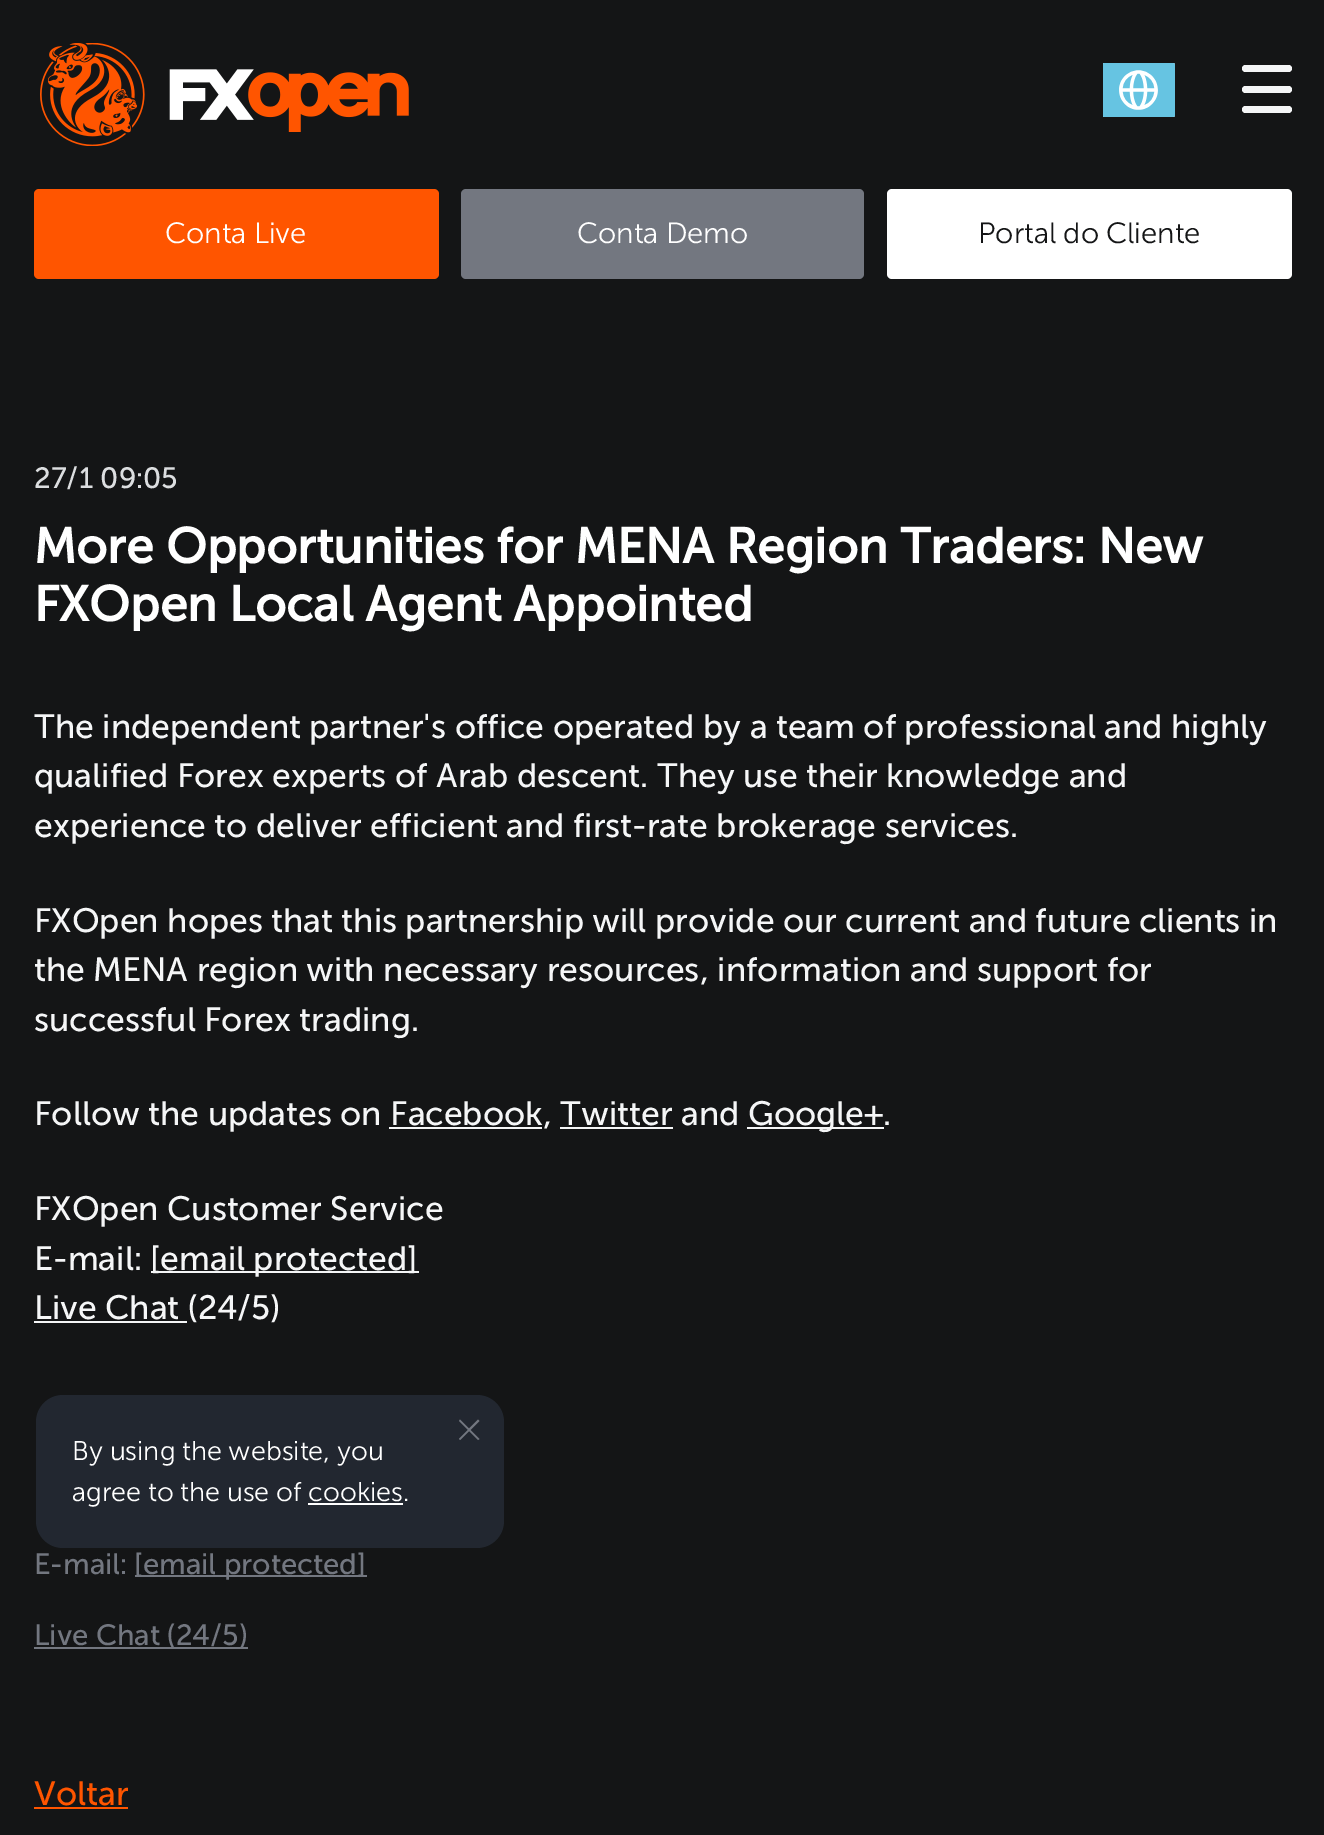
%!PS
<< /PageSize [1324 1835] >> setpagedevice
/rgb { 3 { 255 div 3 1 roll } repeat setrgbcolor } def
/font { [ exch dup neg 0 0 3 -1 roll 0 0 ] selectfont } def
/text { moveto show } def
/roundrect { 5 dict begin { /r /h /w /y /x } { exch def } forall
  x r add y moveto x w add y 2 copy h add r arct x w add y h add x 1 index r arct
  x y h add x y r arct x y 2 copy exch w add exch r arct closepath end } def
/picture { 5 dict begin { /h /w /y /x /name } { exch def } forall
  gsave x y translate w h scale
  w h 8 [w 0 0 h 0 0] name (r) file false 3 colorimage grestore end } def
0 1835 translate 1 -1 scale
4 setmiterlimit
20 21 22 rgb
0 0 1324 1835 rectfill
(img_01.rgb) 1103 63 72 54 picture
245 246 247 rgb
1242 86 50 7 3.5 roundrect fill
1242 65 50 7 3.5 roundrect fill
1242 106 50 7 3.5 roundrect fill
(img_02.rgb) 40 43 369 103 picture
255 85 0 rgb
34 189 405 90 5 roundrect fill
115 119 128 rgb
461 189 403 90 5 roundrect fill
255 255 255 rgb
887 189 405 90 5 roundrect fill
245 246 247 rgb
747 1127 137 2 rectfill
389 1127 153 2 rectfill
560 1127 113 2 rectfill
151 1271 268 2 rectfill
34 1321 153 2 rectfill
115 119 128 rgb
135 1575 232 2 rectfill
34 1647 214 2 rectfill
255 85 0 rgb
34 1807 94 2 rectfill
34 39 48 rgb
36 1395 468 153 27 roundrect fill
115 119 128 rgb
459 1421 moveto 1 -1.5 rlineto 19.5 19.5 rlineto -1.5 1 rlineto closepath fill
478 1419.5 moveto 1.5 1.5 rlineto -19.5 19 rlineto -1 -1 rlineto closepath fill
255 255 255 rgb
308 1503 95 2 rectfill
/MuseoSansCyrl-Light 29.25 font
(Conta Live) 165 243 text
(Conta Demo) 577 243 text
20 21 22 rgb
(Portal do Cliente) 978 243 text
/MuseoSansCyrl-Regular 29.25 font
220 222 224 rgb
(27/1 09:05) 34 488 text
/MuseoSansCyrl-Bold 49.5 font
255 255 255 rgb
(More Opportunities for MENA Region Traders: New) 34 563 text
(FXOpen Local Agent Appointed) 34 621 text
/MuseoSansCyrl-Regular 33.75 font
245 246 247 rgb
(The independent partner's office operated by a team of professional and highly) 34 738 text
(qualified Forex experts of Arab descent. They use their knowledge and) 34 787 text
(experience to deliver efficient and first-rate brokerage services.) 34 837 text
(FXOpen hopes that this partnership will provide our current and future clients in) 34 932 text
(the MENA region with necessary resources, information and support for) 34 981 text
(successful Forex trading.) 34 1031 text
(Follow the updates on Facebook, Twitter and) 34 1125 text
(Google+.) 748 1125 text
(FXOpen Customer Service) 34 1220 text
(E-mail:) 34 1270 text
([email protected]) 150 1270 text
(Live Chat \(24/5\)) 34 1319 text
/MuseoSansCyrl-Regular 29.25 font
115 119 128 rgb
(E-mail:) 34 1574 text
([email protected]) 134 1574 text
(Live Chat \(24/5\)) 34 1645 text
/MuseoSansCyrl-Regular 33.75 font
255 85 0 rgb
(Voltar) 34 1805 text
/MuseoSansCyrl-Light 27 font
255 255 255 rgb
(By using the website, you) 72 1460 text
(agree to the use of cookies.) 72 1501 text
showpage
